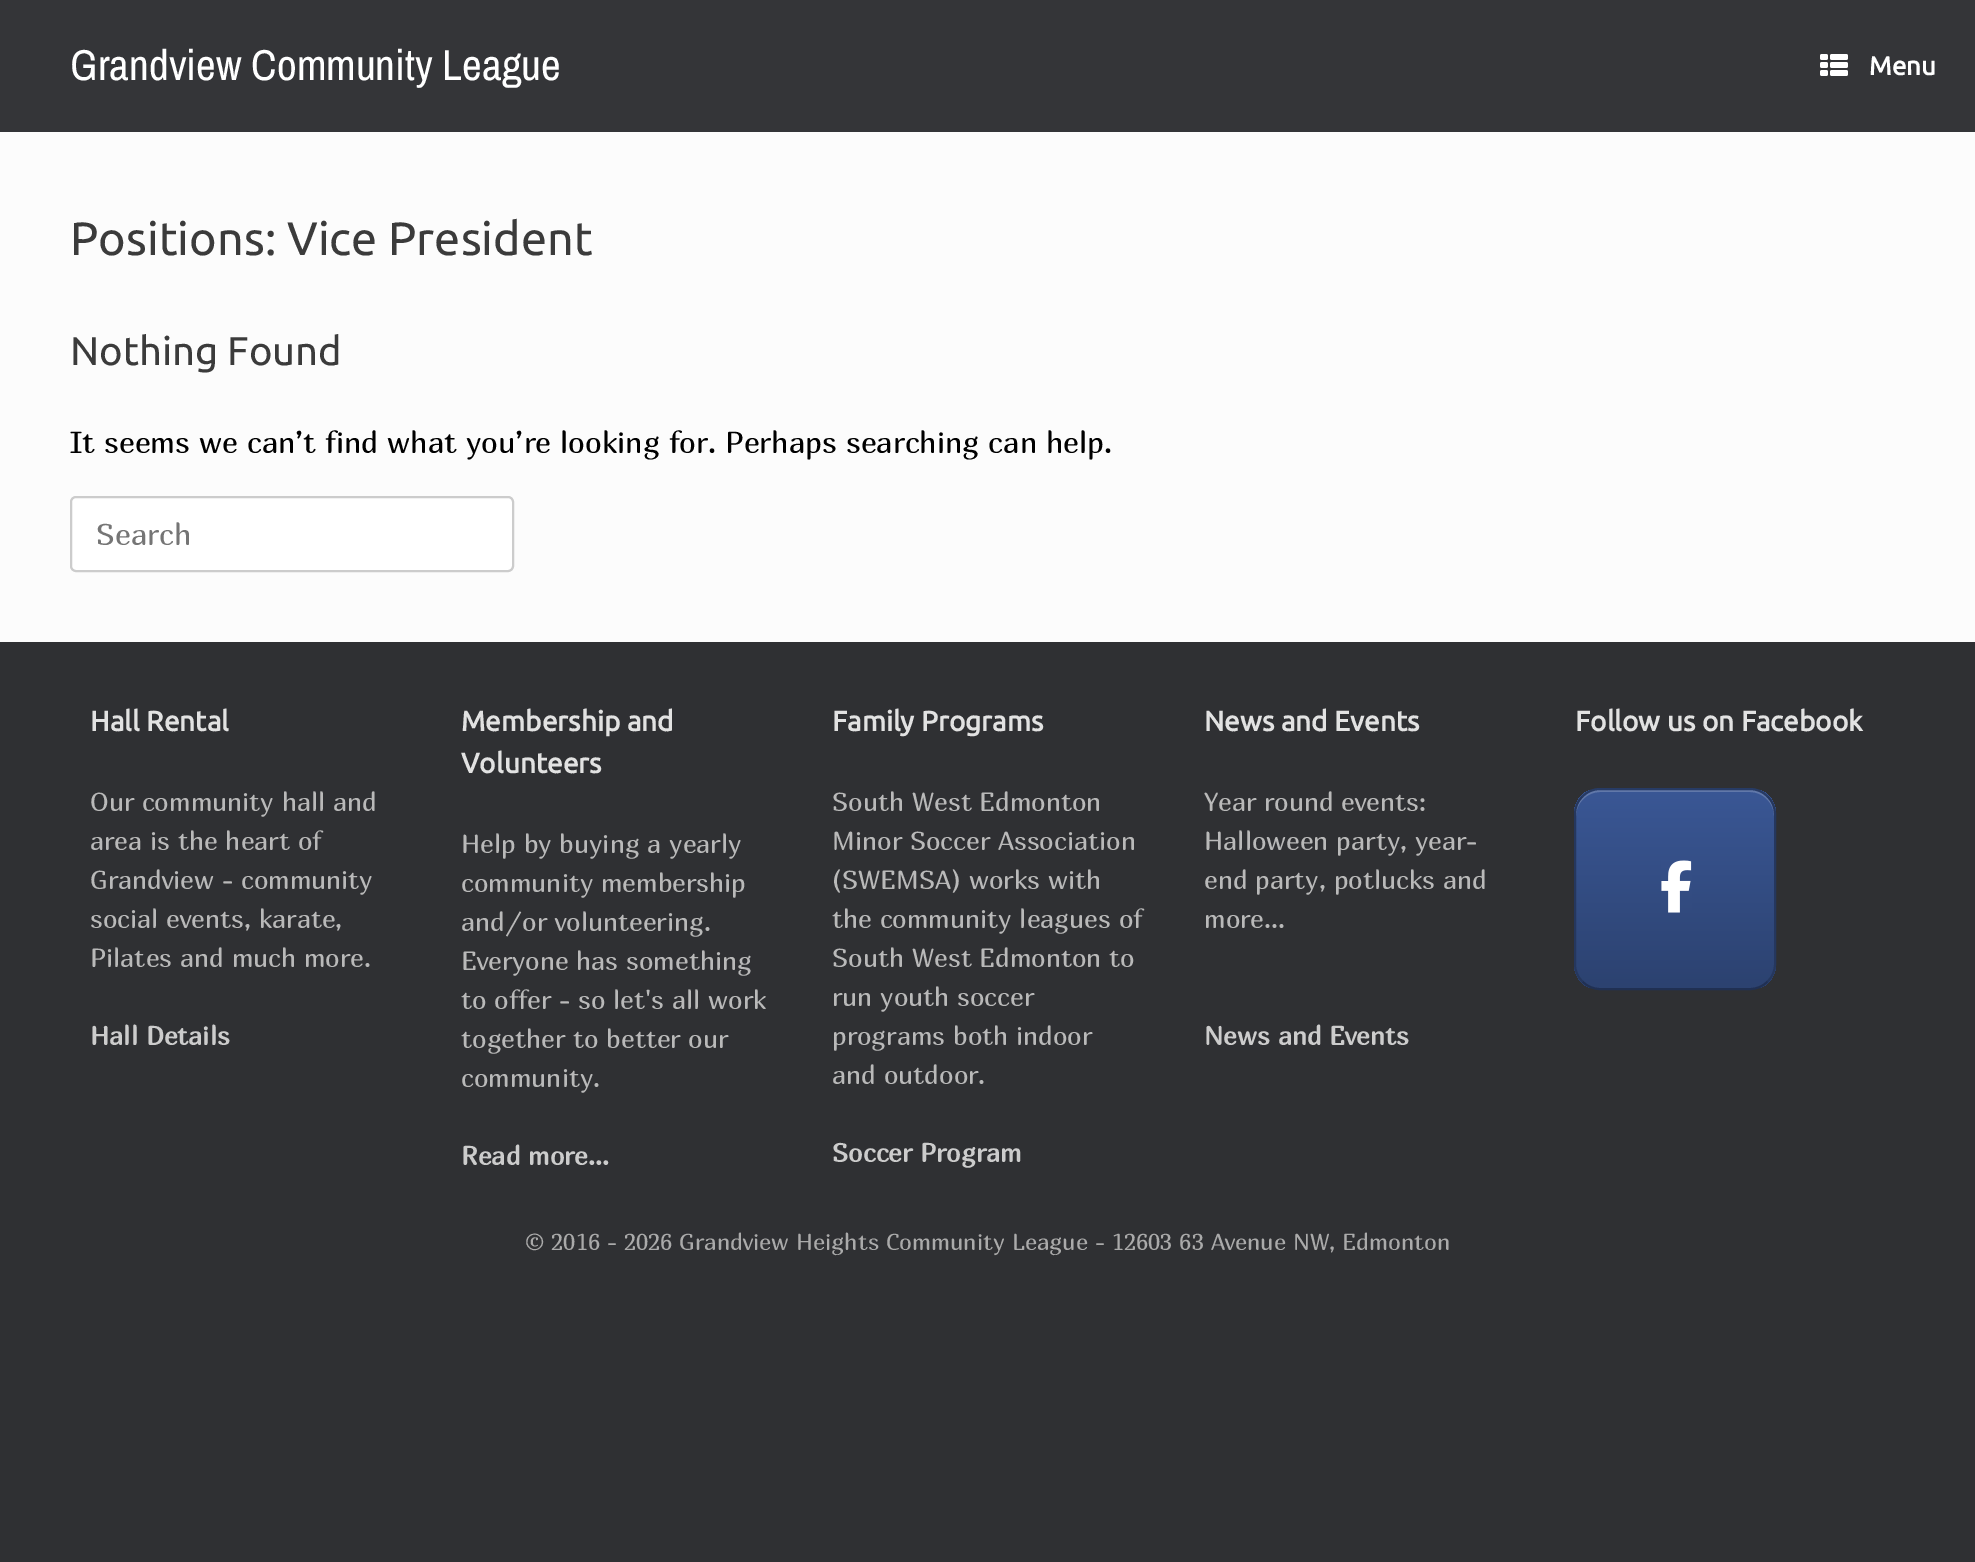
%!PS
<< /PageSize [1975 1562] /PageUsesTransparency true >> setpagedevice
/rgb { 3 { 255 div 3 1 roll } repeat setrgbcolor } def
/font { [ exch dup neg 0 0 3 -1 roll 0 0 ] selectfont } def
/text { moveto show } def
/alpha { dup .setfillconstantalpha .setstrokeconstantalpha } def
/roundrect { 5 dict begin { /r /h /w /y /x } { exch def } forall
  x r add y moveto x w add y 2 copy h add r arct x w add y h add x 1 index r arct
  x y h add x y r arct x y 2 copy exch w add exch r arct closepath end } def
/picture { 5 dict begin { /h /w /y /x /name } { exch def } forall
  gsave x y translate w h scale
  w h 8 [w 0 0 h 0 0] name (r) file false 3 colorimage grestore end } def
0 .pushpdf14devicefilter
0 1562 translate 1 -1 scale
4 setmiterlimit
47 48 51 rgb
0 0 1975 1562 rectfill
52 53 56 rgb
0 0 1975 132 rectfill
(img_01.rgb) 1820 54 28 22 picture
252 252 252 rgb
0 132 1975 510 rectfill
255 255 255 rgb
71 497 442 74 5 roundrect gsave fill grestore
204 204 204 rgb
2 setlinewidth
stroke
gsave
1574 788 202 202 26 roundrect clip newpath
gsave 1574 790 moveto 202 0 rlineto 0 198 rlineto -202 0 rlineto closepath clip newpath
<< /ShadingType 2 /ColorSpace /DeviceRGB /Coords [1576 988 1576 790] /Extend [true true] /Function << /FunctionType 2 /Domain [0 1] /C0 [0.173 0.259 0.439] /C1 [0.227 0.341 0.584] /N 1 >> >> shfill grestore
grestore
0.2 alpha
255 255 255 rgb
1600 792 moveto 150 0 rlineto 13 0 24 11 24 24 rcurveto 0 -2 rlineto 0 -13 -11 -24 -24 -24 rcurveto -150 0 rlineto -13 0 -24 11 -24 24 rcurveto 0 2 rlineto 0 -13 11 -24 24 -24 rcurveto closepath fill
1 alpha
39 59 101 rgb
1582.5 796.5 moveto 4.5 -5 11 -7.5 17.5 -7.5 rcurveto 150 0 rlineto 6.5 0 13 2.5 17.5 7.5 rcurveto stroke
37 55 94 rgb
1767.5 796.5 moveto 5 4.5 7.5 11 7.5 17.5 rcurveto 0 150 rlineto 0 6.5 -2.5 13 -7.5 17.5 rcurveto stroke
32 48 83 rgb
1767.5 981.5 moveto -4.5 5 -11 7.5 -17.5 7.5 rcurveto -150 0 rlineto -6.5 0 -13 -2.5 -17.5 -7.5 rcurveto stroke
37 55 94 rgb
1582.5 981.5 moveto -5 -4.5 -7.5 -11 -7.5 -17.5 rcurveto 0 -150 rlineto 0 -6.5 2.5 -13 7.5 -17.5 rcurveto stroke
(img_02.rgb) 1661 860 31 53 picture
/ArchivoNarrow-Regular 43.25 font
255 255 255 rgb
(Grandview Community League) 70 80 text
/Ubuntu-Bold 26 font
(Menu) 1869 75 text
/Ubuntu-Regular 46.75 font
59 59 59 rgb
(Positions: Vice President) 70 255 text
/Ubuntu-Regular 40 font
(Nothing Found) 70 365 text
/Marmelad-Regular 30 font
0 0 0 rgb
(It seems we can’t find what you’re looking for. Perhaps searching can help.) 70 453 text
117 117 117 rgb
(Search) 96 545 text
/Ubuntu-Bold 28 font
226 226 226 rgb
(Hall Rental) 90 731 text
/Marmelad-Regular 26 font
185 185 185 rgb
(Our community hall and) 90 811 text
(area is the heart of) 90 850 text
(Grandview - community) 90 889 text
(social events, karate,) 90 928 text
(Pilates and much more.) 90 967 text
/Marmelad-Bold 26 font
204 204 204 rgb
(Hall Details) 90 1045 text
/Ubuntu-Bold 28 font
226 226 226 rgb
(Membership and) 461 731 text
(Volunteers) 461 773 text
/Marmelad-Regular 26 font
185 185 185 rgb
(Help by buying a yearly) 461 853 text
(community membership) 461 892 text
(and/or volunteering.) 461 931 text
(Everyone has something) 461 970 text
(to offer - so let's all work) 461 1009 text
(together to better our) 461 1048 text
(community.) 461 1087 text
/Marmelad-Bold 26 font
204 204 204 rgb
(Read more...) 461 1165 text
/Ubuntu-Bold 28 font
226 226 226 rgb
(Family Programs) 832 731 text
/Marmelad-Regular 26 font
185 185 185 rgb
(South West Edmonton) 832 811 text
(Minor Soccer Association) 832 850 text
(\(SWEMSA\) works with) 832 889 text
(the community leagues of) 832 928 text
(South West Edmonton to) 832 967 text
(run youth soccer) 832 1006 text
(programs both indoor) 832 1045 text
(and outdoor.) 832 1084 text
/Marmelad-Bold 26 font
204 204 204 rgb
(Soccer Program) 832 1162 text
/Ubuntu-Bold 28 font
226 226 226 rgb
(News and Events) 1204 731 text
/Marmelad-Regular 26 font
185 185 185 rgb
(Year round events:) 1204 811 text
(Halloween party, year-) 1204 850 text
(end party, potlucks and) 1204 889 text
(more...) 1204 928 text
/Marmelad-Bold 26 font
204 204 204 rgb
(News and Events) 1204 1045 text
/Ubuntu-Bold 28 font
226 226 226 rgb
(Follow us on Facebook) 1575 731 text
/Marmelad-Regular 23 font
170 170 170 rgb
(© 2016 - 2026 Grandview Heights Community League - 12603 63 Avenue NW, Edmonton) 525 1250 text
.poppdf14devicefilter showpage
